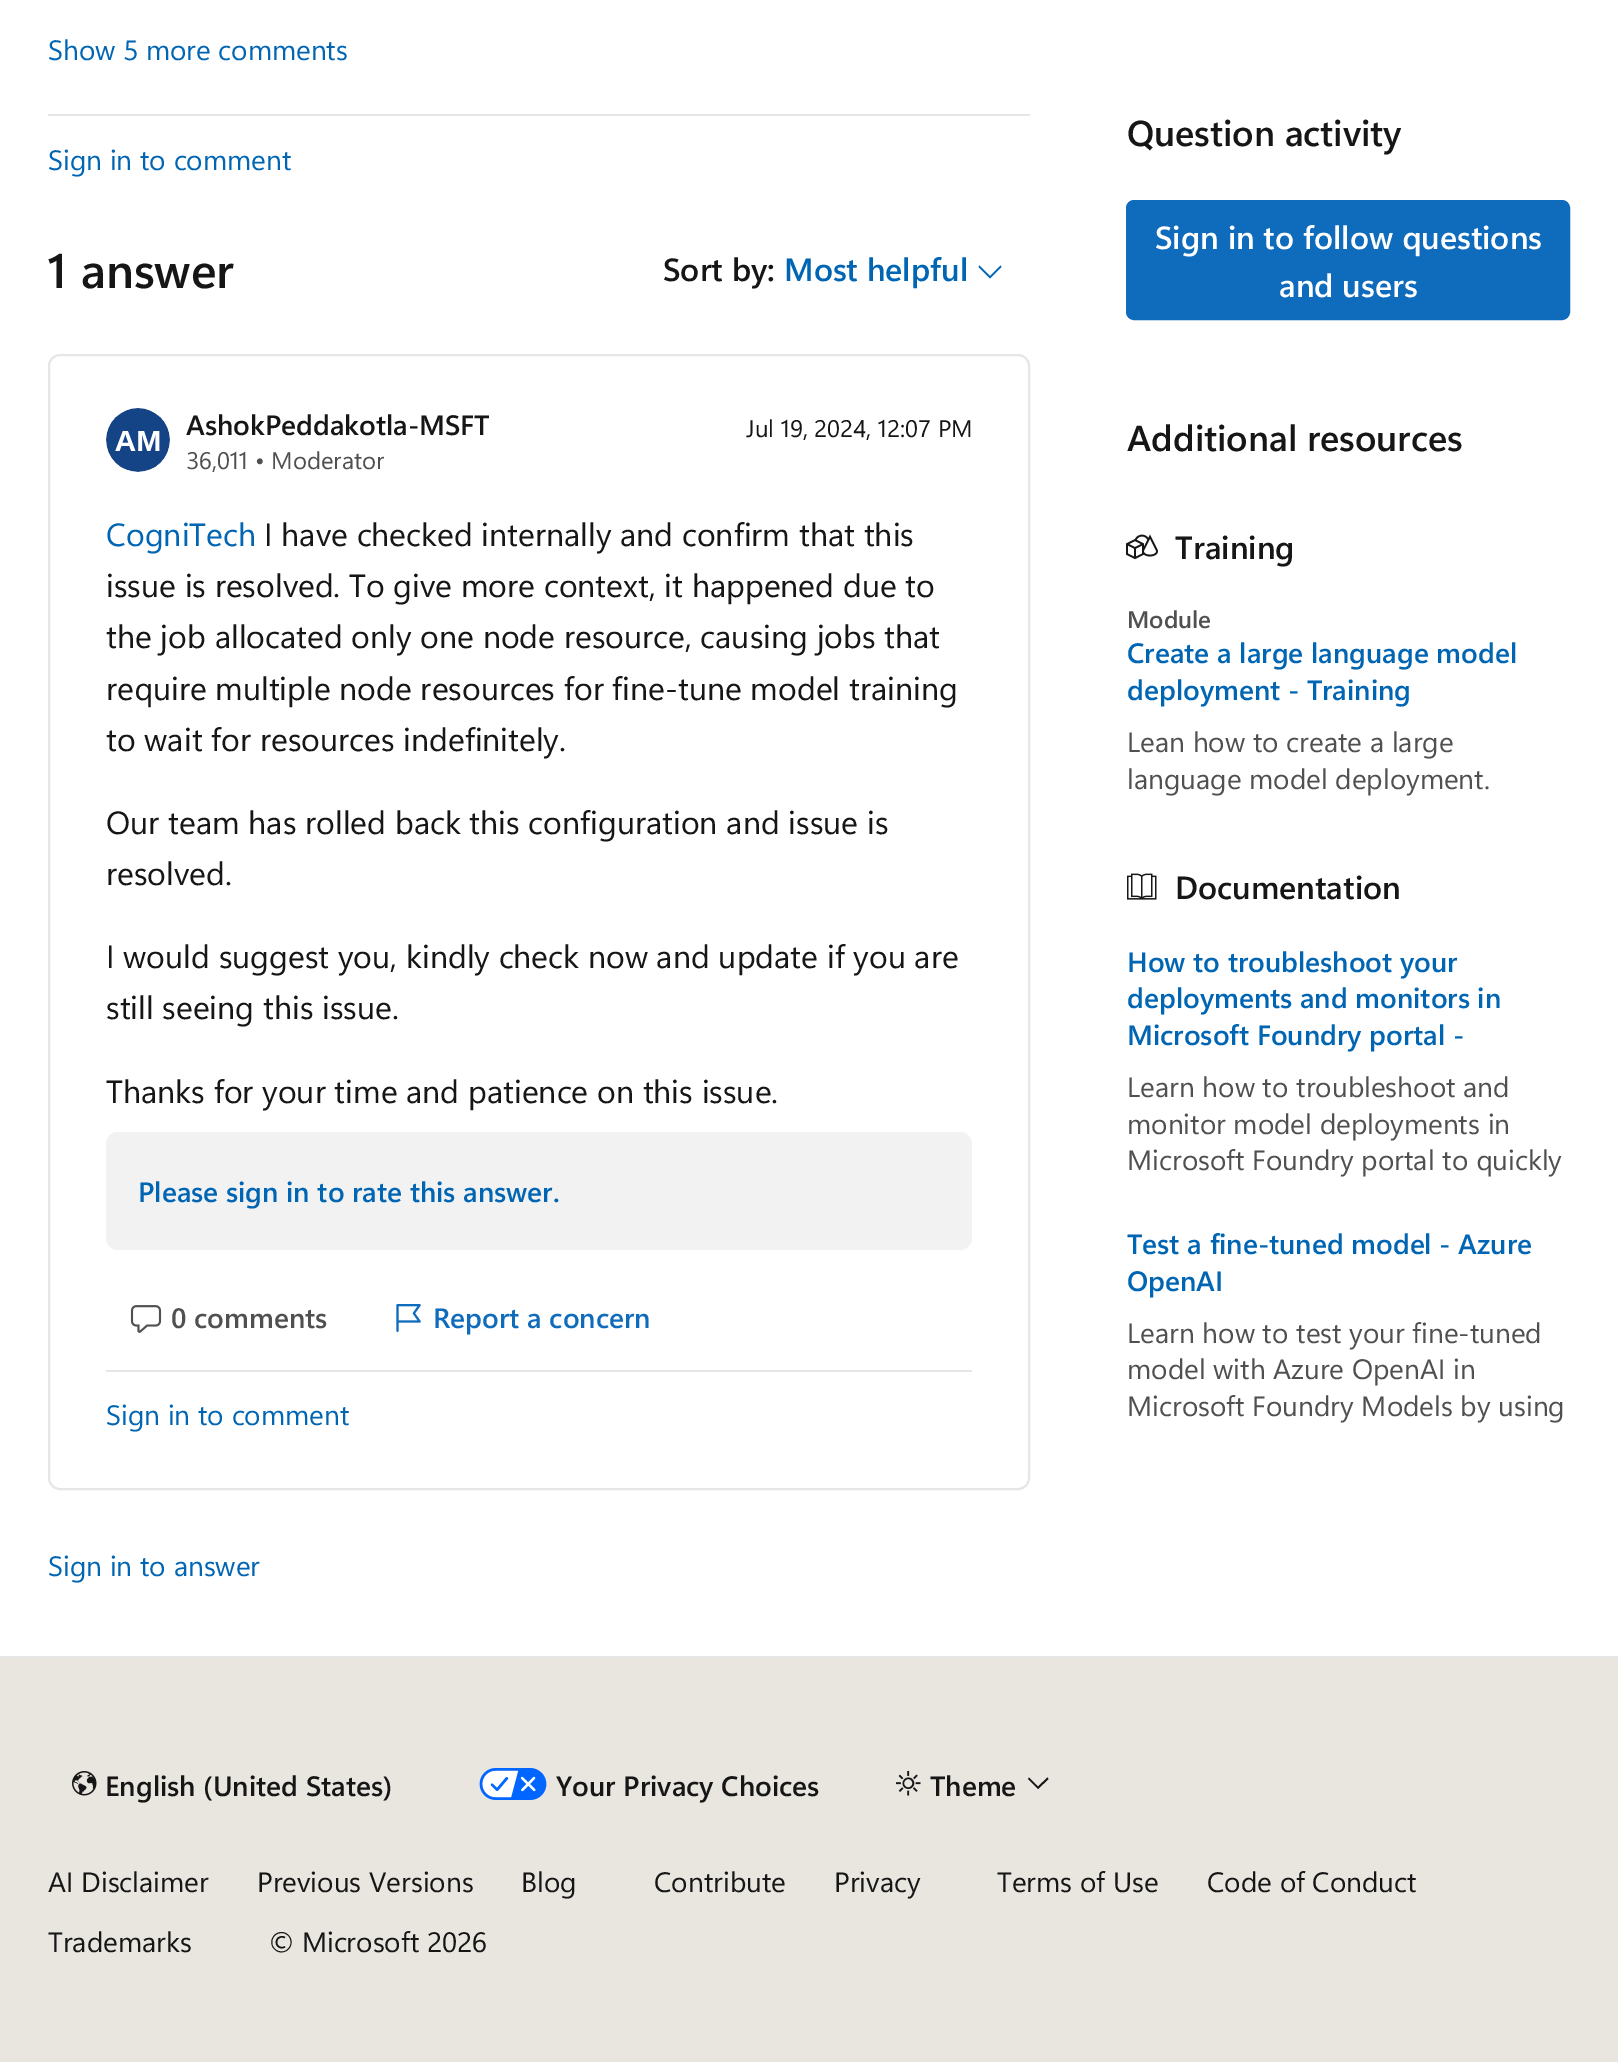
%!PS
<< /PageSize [1618 2062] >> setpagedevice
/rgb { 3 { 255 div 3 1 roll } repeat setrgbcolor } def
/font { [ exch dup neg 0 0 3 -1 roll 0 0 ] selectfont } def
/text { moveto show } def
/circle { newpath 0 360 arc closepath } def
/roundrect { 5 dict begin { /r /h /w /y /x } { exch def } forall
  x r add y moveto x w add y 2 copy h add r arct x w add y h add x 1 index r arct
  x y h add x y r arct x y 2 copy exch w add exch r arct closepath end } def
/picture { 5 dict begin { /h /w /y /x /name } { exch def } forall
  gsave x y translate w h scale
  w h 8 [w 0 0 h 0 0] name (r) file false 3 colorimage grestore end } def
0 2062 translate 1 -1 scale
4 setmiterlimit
255 255 255 rgb
0 0 1618 2062 rectfill
230 230 230 rgb
48 114 982 2 rectfill
0 101 179 rgb
990 278.5 moveto -11.5 -11.5 rlineto 1 -1.5 rlineto 10.5 10.5 rlineto 10.5 -10.5 rlineto 1 1.5 rlineto closepath fill
230 230 230 rgb
2 setlinewidth
49 355 980 1134 11 roundrect stroke
242 242 242 rgb
138 440 32 circle fill
(img_01.rgb) 106 408 64 64 picture
106 1132 866 118 12 roundrect fill
(img_02.rgb) 130 1305 32 28 picture
(img_03.rgb) 396 1304 25 28 picture
230 230 230 rgb
106 1370 866 2 rectfill
15 108 189 rgb
1127 201 442 118 7 roundrect gsave fill grestore
stroke
(img_04.rgb) 1126 534 32 26 picture
(img_05.rgb) 1127 873 30 27 picture
232 230 223 rgb
0 1658 1618 404 rectfill
230 230 230 rgb
0 1656 1618 2 rectfill
(img_06.rgb) 72 1771 25 25 picture
(img_07.rgb) 479 1768 68 32 picture
(img_08.rgb) 896 1771 25 25 picture
22 22 22 rgb
1038 1789 moveto -10 -10 rlineto 1 -1.5 rlineto 9 9 rlineto 9.5 -9 rlineto 1 1.5 rlineto closepath fill
/SegoeUI-Regular 28 font
0 101 179 rgb
(Show 5 more comments) 48 60 text
(Sign in to comment) 48 170 text
/SegoeUI-SemiBold 48 font
22 22 22 rgb
(1 answer) 48 288 text
/SegoeUI-SemiBold 32 font
(Sort by:) 663 281 text
0 101 179 rgb
(Most helpful) 784 281 text
/SegoeUI-SemiBold 28 font
22 22 22 rgb
(AshokPeddakotla-MSFT) 186 435 text
/SegoeUI-Regular 24 font
80 80 80 rgb
(36,011 • Moderator) 186 469 text
22 22 22 rgb
(Jul 19, 2024, 12:07 PM) 746 437 text
/SegoeUI-Regular 32 font
0 101 179 rgb
(CogniTech) 106 546 text
22 22 22 rgb
(I have checked internally and confirm that this) 264 546 text
(issue is resolved. To give more context, it happened due to) 106 597 text
(the job allocated only one node resource, causing jobs that) 106 648 text
(require multiple node resources for fine-tune model training) 106 700 text
(to wait for resources indefinitely.) 106 751 text
(Our team has rolled back this configuration and issue is) 106 834 text
(resolved.) 106 885 text
(I would suggest you, kindly check now and update if you are) 106 968 text
(still seeing this issue.) 106 1019 text
(Thanks for your time and patience on this issue.) 106 1103 text
/SegoeUI-SemiBold 28 font
0 101 179 rgb
(Please sign in to rate this answer.) 138 1202 text
80 80 80 rgb
(0 comments) 171 1328 text
15 108 189 rgb
(Report a concern) 433 1328 text
/SegoeUI-Regular 28 font
0 101 179 rgb
(Sign in to comment) 106 1425 text
(Sign in to answer) 48 1576 text
/SegoeUI-SemiBold 36 font
22 22 22 rgb
(Question activity) 1127 146 text
/SegoeUI-SemiBold 32 font
255 255 255 rgb
(Sign in to follow questions) 1155 249 text
(and users) 1279 297 text
/SegoeUI-SemiBold 36 font
22 22 22 rgb
(Additional resources) 1127 451 text
/SegoeUI-SemiBold 32 font
(Training) 1175 559 text
/SegoeUI-SemiBold 24 font
80 80 80 rgb
(Module) 1127 628 text
/SegoeUI-SemiBold 28 font
0 101 179 rgb
(Create a large language model) 1127 663 text
(deployment - Training) 1127 700 text
/SegoeUI-Regular 28 font
80 80 80 rgb
(Lean how to create a large) 1127 752 text
(language model deployment.) 1127 789 text
/SegoeUI-SemiBold 32 font
22 22 22 rgb
(Documentation) 1175 899 text
/SegoeUI-SemiBold 28 font
0 101 179 rgb
(How to troubleshoot your) 1127 972 text
(deployments and monitors in) 1127 1008 text
(Microsoft Foundry portal -) 1127 1045 text
/SegoeUI-Regular 28 font
80 80 80 rgb
(Learn how to troubleshoot and) 1127 1097 text
(monitor model deployments in) 1127 1134 text
(Microsoft Foundry portal to quickly) 1127 1170 text
/SegoeUI-SemiBold 28 font
0 101 179 rgb
(Test a fine-tuned model - Azure) 1127 1254 text
(OpenAI) 1127 1291 text
/SegoeUI-Regular 28 font
80 80 80 rgb
(Learn how to test your fine-tuned) 1127 1343 text
(model with Azure OpenAI in) 1127 1379 text
(Microsoft Foundry Models by using) 1127 1416 text
/SegoeUI-SemiBold 28 font
22 22 22 rgb
(English \(United States\)) 105 1796 text
(Your Privacy Choices) 556 1796 text
(Theme) 930 1796 text
/SegoeUI-Regular 28 font
(AI Disclaimer) 48 1892 text
(Previous Versions) 257 1892 text
(Blog) 521 1892 text
(Contribute) 654 1892 text
(Privacy) 834 1892 text
(Terms of Use) 997 1892 text
(Code of Conduct) 1207 1892 text
(Trademarks) 48 1952 text
(© Microsoft 2026) 269 1952 text
showpage
